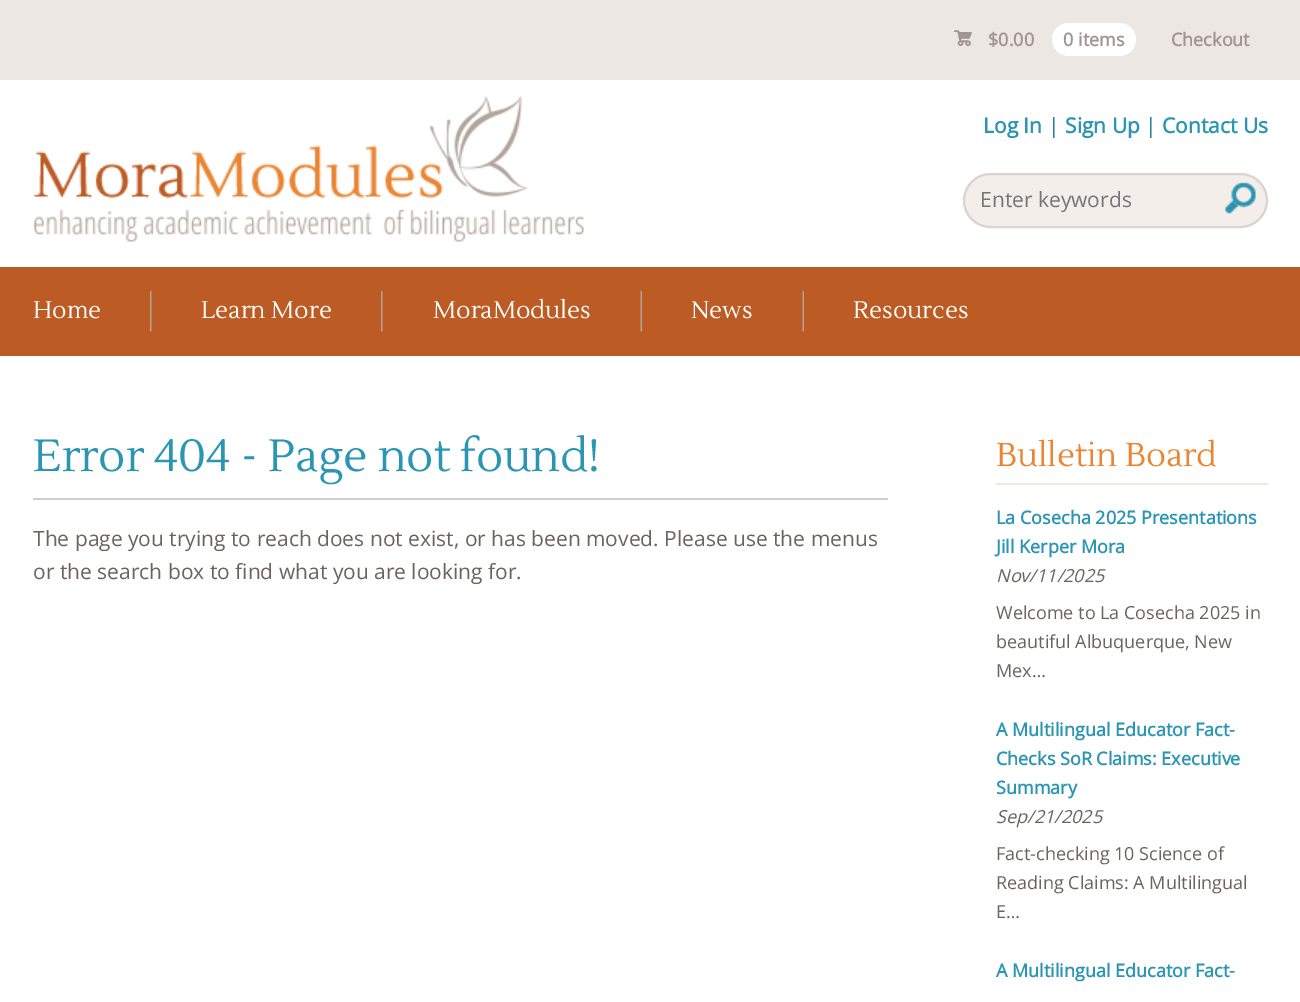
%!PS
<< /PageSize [1300 1002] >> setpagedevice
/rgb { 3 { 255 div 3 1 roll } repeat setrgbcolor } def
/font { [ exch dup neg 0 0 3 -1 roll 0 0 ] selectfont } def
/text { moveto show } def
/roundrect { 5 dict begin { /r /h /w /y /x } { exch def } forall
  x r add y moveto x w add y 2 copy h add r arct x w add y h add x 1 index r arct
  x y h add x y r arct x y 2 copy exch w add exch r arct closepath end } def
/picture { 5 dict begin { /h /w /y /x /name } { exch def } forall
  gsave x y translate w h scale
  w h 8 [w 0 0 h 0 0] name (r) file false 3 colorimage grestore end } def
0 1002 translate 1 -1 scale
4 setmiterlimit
255 255 255 rgb
0 0 1300 1002 rectfill
237 231 228 rgb
0 0 1300 80 rectfill
255 255 255 rgb
1052 23 84 33 16.5 roundrect fill
(img_01.rgb) 33 96 551 146 picture
244 238 234 rgb
964 174 303 53 26.5 roundrect gsave fill grestore
218 212 209 rgb
2 setlinewidth
stroke
(img_02.rgb) 1225 182 31 32 picture
188 92 36 rgb
0 267 1300 89 rectfill
(img_03.rgb) 150 290 2 42 picture
(img_03.rgb) 381 290 2 42 picture
(img_04.rgb) 640 290 2 42 picture
(img_04.rgb) 802 290 2 42 picture
209 207 206 rgb
33 498 855 2 rectfill
246 231 218 rgb
996 483 272 2 rectfill
/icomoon-Regular 18 font
159 150 147 rgb
(£) 954 46 text
/OpenSans-Bold 18 font
($0.00) 988 46 text
(0 items) 1063 46 text
(Checkout) 1171 46 text
/OpenSans-Bold 21 font
43 150 180 rgb
(Log In) 983 133 text
/OpenSans-Regular 21 font
34 128 154 rgb
(|) 1048 133 text
/OpenSans-Bold 21 font
43 150 180 rgb
(Sign Up) 1065 133 text
/OpenSans-Regular 21 font
34 128 154 rgb
(|) 1145 133 text
/OpenSans-Bold 21 font
43 150 180 rgb
(Contact Us) 1162 133 text
/OpenSans-Regular 21 font
117 117 117 rgb
(Enter keywords) 980 207 text
/Lustria-Regular 24 font
255 255 255 rgb
(Home) 33 318 text
(Learn More) 201 318 text
(MoraModules) 433 318 text
(News) 691 318 text
(Resources) 853 318 text
/Lustria-Regular 45 font
43 150 180 rgb
(Error 404 - Page not found!) 33 471 text
/OpenSans-Regular 21 font
108 99 96 rgb
(The page you trying to reach does not exist, or has been moved. Please use the menus) 33 546 text
(or the search box to find what you are looking for.) 33 579 text
/Lustria-Regular 33 font
234 134 51 rgb
(Bulletin Board) 996 466 text
/OpenSans-Bold 18 font
43 150 180 rgb
(La Cosecha 2025 Presentations) 996 524 text
(Jill Kerper Mora) 996 553 text
/OpenSans-Italic 18 font
108 99 96 rgb
(Nov/11/2025) 996 582 text
/OpenSans-Regular 18 font
(Welcome to La Cosecha 2025 in) 996 619 text
(beautiful Albuquerque, New) 996 648 text
(Mex…) 996 677 text
/OpenSans-Bold 18 font
43 150 180 rgb
(A Multilingual Educator Fact-) 996 736 text
(Checks SoR Claims: Executive) 996 765 text
(Summary) 996 794 text
/OpenSans-Italic 18 font
108 99 96 rgb
(Sep/21/2025) 996 823 text
/OpenSans-Regular 18 font
(Fact-checking 10 Science of) 996 860 text
(Reading Claims: A Multilingual) 996 889 text
(E…) 996 918 text
/OpenSans-Bold 18 font
43 150 180 rgb
(A Multilingual Educator Fact-) 996 977 text
showpage
